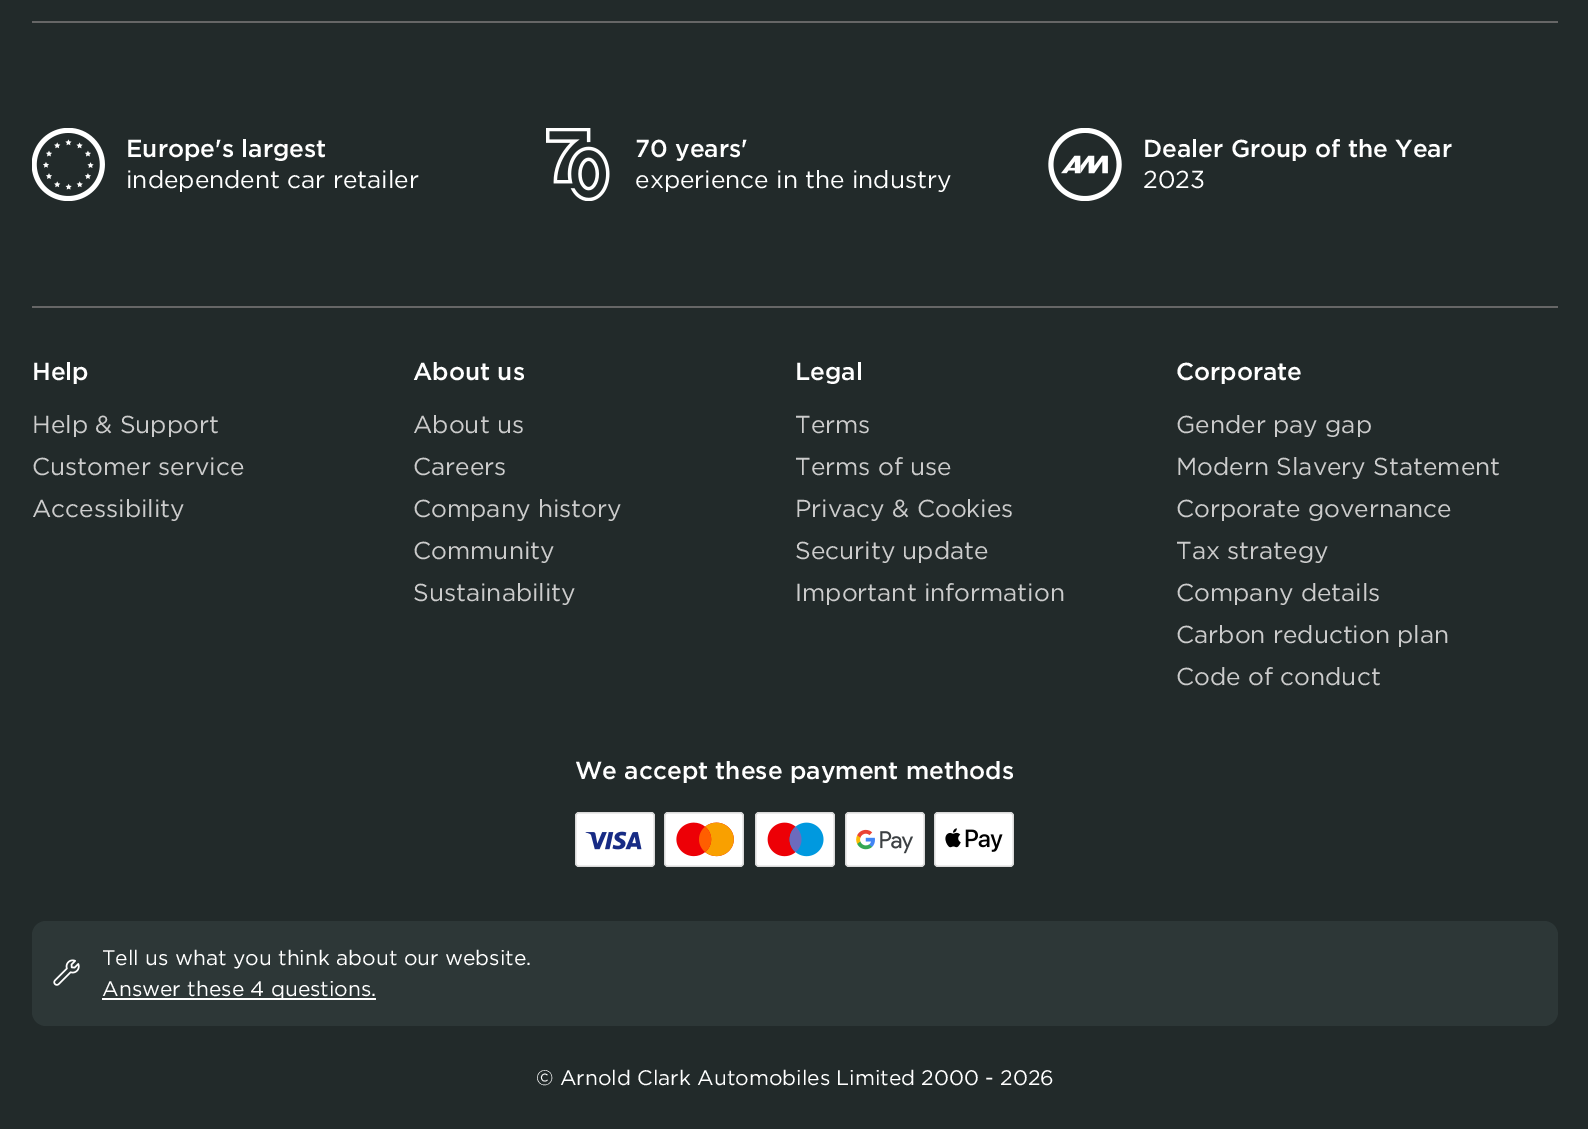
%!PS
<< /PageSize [1588 1129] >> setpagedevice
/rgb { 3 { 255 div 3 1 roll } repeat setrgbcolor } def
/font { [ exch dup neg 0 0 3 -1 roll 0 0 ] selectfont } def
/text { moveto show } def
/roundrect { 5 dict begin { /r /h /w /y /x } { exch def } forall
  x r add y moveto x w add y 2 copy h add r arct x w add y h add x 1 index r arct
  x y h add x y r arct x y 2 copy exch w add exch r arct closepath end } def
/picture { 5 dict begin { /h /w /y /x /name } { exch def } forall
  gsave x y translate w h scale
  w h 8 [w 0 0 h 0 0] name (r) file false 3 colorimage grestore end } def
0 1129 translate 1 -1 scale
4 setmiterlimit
34 42 42 rgb
0 0 1588 1129 rectfill
102 102 102 rgb
32 21 1526 2 rectfill
32 306 1526 2 rectfill
(img_01.rgb) 32 128 73 73 picture
(img_02.rgb) 546 128 64 73 picture
(img_03.rgb) 1048 128 74 73 picture
(img_04.rgb) 575 812 80 55 picture
(img_05.rgb) 664 812 80 55 picture
(img_06.rgb) 755 812 80 55 picture
(img_07.rgb) 845 812 80 55 picture
(img_08.rgb) 934 812 80 55 picture
45 55 55 rgb
32 921 1526 105 14 roundrect fill
(img_09.rgb) 53 959 27 27 picture
255 255 255 rgb
102 998 274 2 rectfill
/Gotham-Medium 24.5 font
(Europe's largest) 126 157 text
/Gotham-Regular 24.5 font
(independent car retailer) 126 188 text
/Gotham-Medium 24.5 font
(70 years') 635 157 text
/Gotham-Regular 24.5 font
(experience in the industry) 635 188 text
/Gotham-Medium 24.5 font
(Dealer Group of the Year) 1143 157 text
/Gotham-Regular 24.5 font
(2023) 1143 188 text
/Gotham-Medium 24.5 font
(Help) 32 380 text
/Gotham-Regular 24.5 font
204 204 204 rgb
(Help & Support) 32 433 text
(Customer service) 32 475 text
(Accessibility) 32 517 text
/Gotham-Medium 24.5 font
255 255 255 rgb
(About us) 413 380 text
/Gotham-Regular 24.5 font
204 204 204 rgb
(About us) 413 433 text
(Careers) 413 475 text
(Company history) 413 517 text
(Community) 413 559 text
(Sustainability) 413 601 text
/Gotham-Medium 24.5 font
255 255 255 rgb
(Legal) 795 380 text
/Gotham-Regular 24.5 font
204 204 204 rgb
(Terms) 795 433 text
(Terms of use) 795 475 text
(Privacy & Cookies) 795 517 text
(Security update) 795 559 text
(Important information) 795 601 text
/Gotham-Medium 24.5 font
255 255 255 rgb
(Corporate) 1176 380 text
/Gotham-Regular 24.5 font
204 204 204 rgb
(Gender pay gap) 1176 433 text
(Modern Slavery Statement) 1176 475 text
(Corporate governance) 1176 517 text
(Tax strategy) 1176 559 text
(Company details) 1176 601 text
(Carbon reduction plan) 1176 643 text
(Code of conduct) 1176 685 text
/Gotham-Medium 24.5 font
255 255 255 rgb
(We accept these payment methods) 575 779 text
/Gotham-Regular 21 font
(Tell us what you think about our website.) 102 965 text
(Answer these 4 questions.) 102 996 text
(© Arnold Clark Automobiles Limited 2000 - 2026) 536 1085 text
showpage
